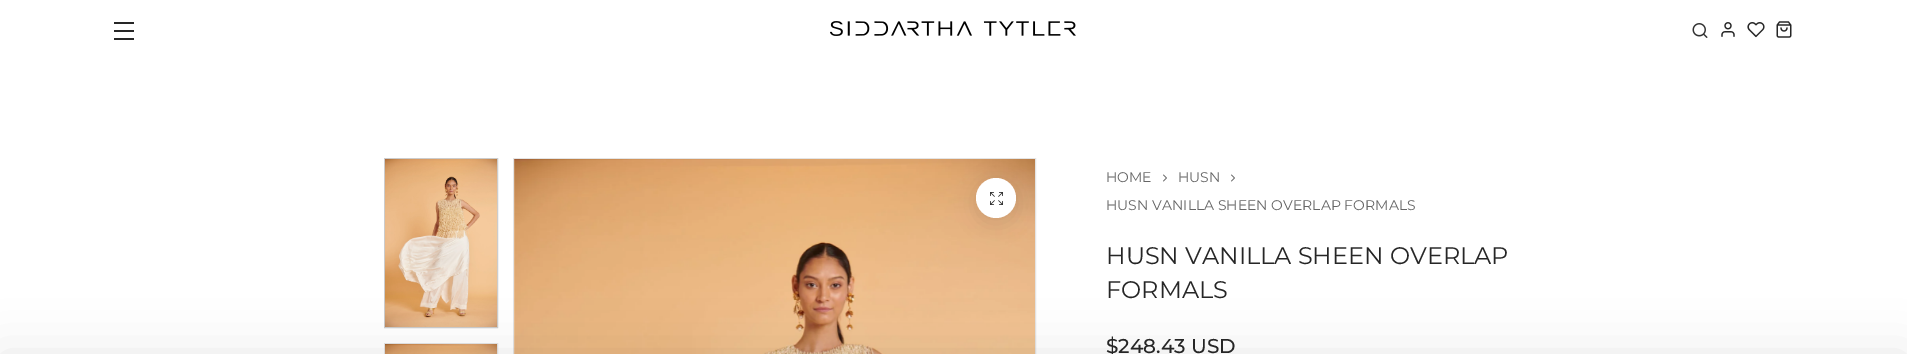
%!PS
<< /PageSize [1907 354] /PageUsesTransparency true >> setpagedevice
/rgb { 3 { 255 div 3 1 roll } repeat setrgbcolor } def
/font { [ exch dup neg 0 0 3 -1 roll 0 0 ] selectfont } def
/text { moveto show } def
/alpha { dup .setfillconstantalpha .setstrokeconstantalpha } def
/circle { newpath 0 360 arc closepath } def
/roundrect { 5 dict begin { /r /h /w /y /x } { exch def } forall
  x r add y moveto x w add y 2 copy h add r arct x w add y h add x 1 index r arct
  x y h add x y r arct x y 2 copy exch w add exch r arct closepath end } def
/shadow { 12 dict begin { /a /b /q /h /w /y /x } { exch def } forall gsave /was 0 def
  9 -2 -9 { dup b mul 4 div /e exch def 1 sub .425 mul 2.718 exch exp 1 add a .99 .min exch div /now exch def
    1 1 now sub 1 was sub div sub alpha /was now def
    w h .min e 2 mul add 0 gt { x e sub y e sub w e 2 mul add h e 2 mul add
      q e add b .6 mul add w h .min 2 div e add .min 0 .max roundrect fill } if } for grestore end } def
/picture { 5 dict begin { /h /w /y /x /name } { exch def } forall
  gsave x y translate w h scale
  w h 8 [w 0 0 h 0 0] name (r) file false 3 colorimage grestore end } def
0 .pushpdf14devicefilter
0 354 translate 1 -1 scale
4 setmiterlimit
255 255 255 rgb
0 0 1907 354 rectfill
38 38 38 rgb
114 22 20 2 rectfill
114 30 20 2 rectfill
114 38 20 2 rectfill
(img_01.rgb) 830 21 246 15 picture
(img_02.rgb) 1692 23 16 15 picture
(img_03.rgb) 1721 22 14 15 picture
(img_04.rgb) 1747 22 18 16 picture
(img_05.rgb) 1776 21 16 17 picture
204 204 204 rgb
384.5 158.5 113 169 rectstroke
(img_06.rgb) 385 159 112 168 picture
228 228 228 rgb
384.5 343.5 113 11 rectstroke
(img_07.rgb) 385 344 112 10 picture
513.5 158.5 522 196 rectstroke
(img_09.rgb) 514 159 521 195 picture
0 0 0 rgb
976 183 40 40 20 10 0.1 shadow
255 255 255 rgb
996 198 20 circle fill
(img_08.rgb) 990 192 13 13 picture
(img_10.rgb) 1163 174 4 8 picture
(img_10.rgb) 1231 174 4 8 picture
0 0 0 rgb
0 354 1907 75 0 25 0.09 shadow
/Montserrat-Regular 14 font
102 102 102 rgb
(HOME) 1106 182 text
(HUSN) 1178 182 text
(HUSN VANILLA SHEEN OVERLAP FORMALS) 1106 210 text
/Montserrat-Regular 24 font
38 38 38 rgb
(HUSN VANILLA SHEEN OVERLAP) 1106 264 text
(FORMALS) 1106 298 text
/Montserrat-Medium 20 font
($248.43 USD) 1106 353 text
.poppdf14devicefilter showpage
